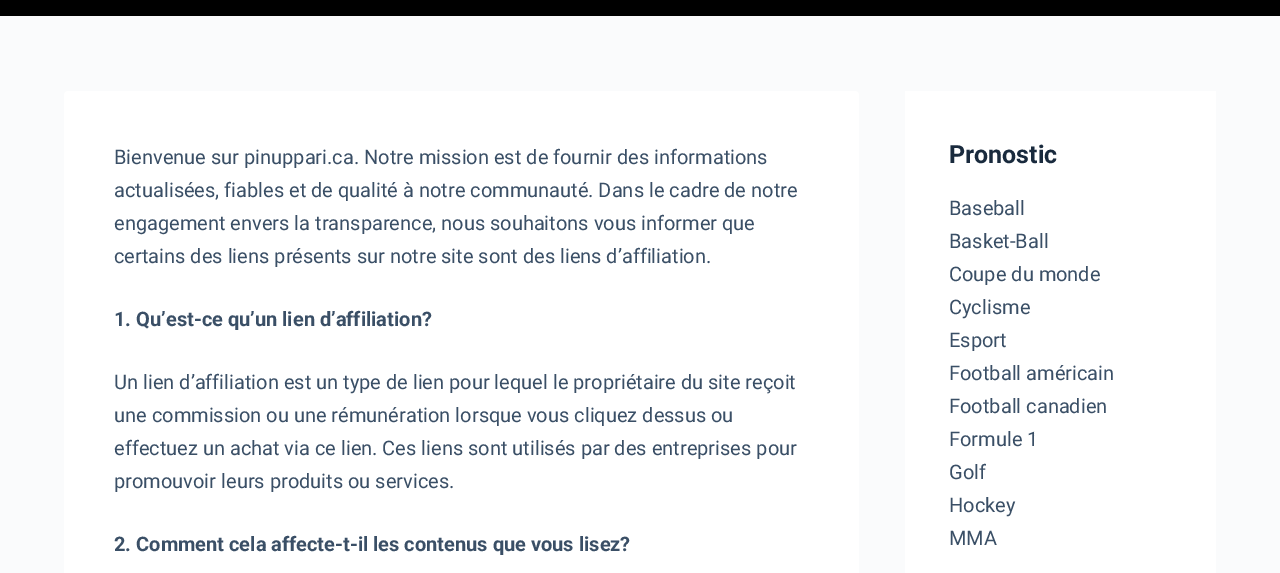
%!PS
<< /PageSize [1280 573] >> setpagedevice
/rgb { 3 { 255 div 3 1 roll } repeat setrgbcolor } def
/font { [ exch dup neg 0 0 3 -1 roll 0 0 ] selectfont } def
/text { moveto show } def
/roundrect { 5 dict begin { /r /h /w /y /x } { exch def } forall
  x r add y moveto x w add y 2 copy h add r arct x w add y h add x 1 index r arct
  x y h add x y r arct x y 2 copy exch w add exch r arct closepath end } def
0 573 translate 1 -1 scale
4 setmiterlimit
250 251 252 rgb
0 0 1280 573 rectfill
0 0 0 rgb
0 0 1280 16 rectfill
255 255 255 rgb
64 91 795 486 4 roundrect fill
905 91 311 482 rectfill
/Roboto-Regular 20 font
58 79 102 rgb
(Bienvenue sur pinuppari.ca. Notre mission est de fournir des informations) 114 164 text
(actualisées, fiables et de qualité à notre communauté. Dans le cadre de notre) 114 197 text
(engagement envers la transparence, nous souhaitons vous informer que) 114 230 text
(certains des liens présents sur notre site sont des liens d’affiliation.) 114 263 text
/Roboto-Bold 20 font
(1. Qu’est-ce qu’un lien d’affiliation?) 114 326 text
/Roboto-Regular 20 font
(Un lien d’affiliation est un type de lien pour lequel le propriétaire du site reçoit) 114 389 text
(une commission ou une rémunération lorsque vous cliquez dessus ou) 114 422 text
(effectuez un achat via ce lien. Ces liens sont utilisés par des entreprises pour) 114 455 text
(promouvoir leurs produits ou services.) 114 488 text
/Roboto-Bold 20 font
(2. Comment cela affecte-t-il les contenus que vous lisez?) 114 551 text
/Roboto-Bold 25 font
25 42 61 rgb
(Pronostic) 949 163 text
/Roboto-Regular 20 font
58 79 102 rgb
(Baseball) 949 215 text
(Basket-Ball) 949 248 text
(Coupe du monde) 949 281 text
(Cyclisme) 949 314 text
(Esport) 949 347 text
(Football américain) 949 380 text
(Football canadien) 949 413 text
(Formule 1) 949 446 text
(Golf) 949 479 text
(Hockey) 949 512 text
(MMA) 949 545 text
showpage
